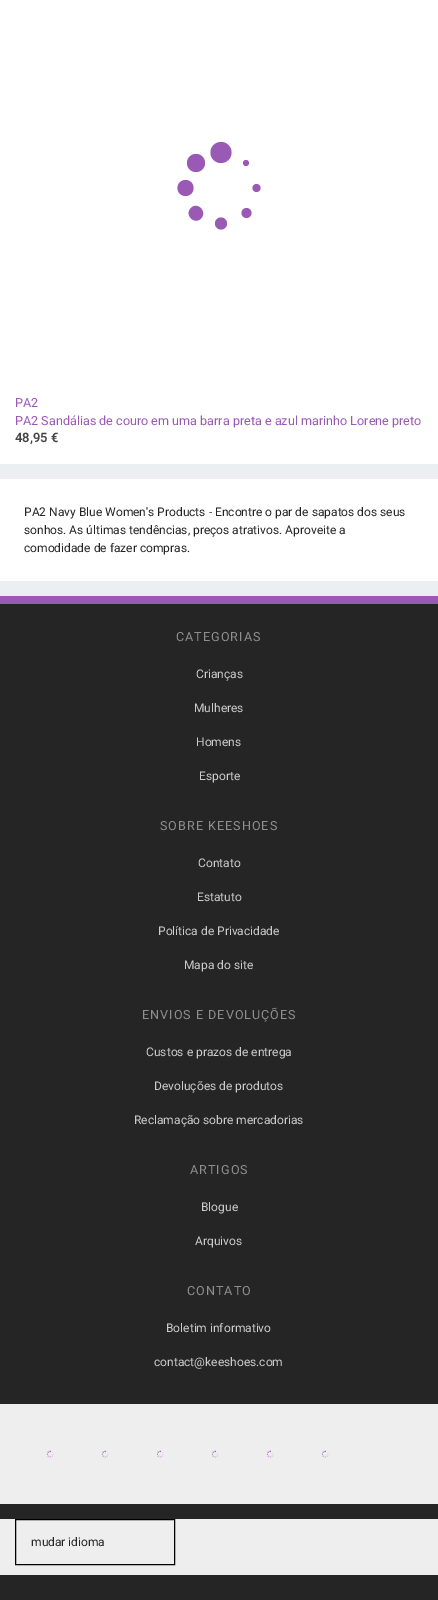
%!PS
<< /PageSize [438 1600] >> setpagedevice
/rgb { 3 { 255 div 3 1 roll } repeat setrgbcolor } def
/font { [ exch dup neg 0 0 3 -1 roll 0 0 ] selectfont } def
/text { moveto show } def
/circle { newpath 0 360 arc closepath } def
/picture { 5 dict begin { /h /w /y /x /name } { exch def } forall
  gsave x y translate w h scale
  w h 8 [w 0 0 h 0 0] name (r) file false 3 colorimage grestore end } def
0 1600 translate 1 -1 scale
4 setmiterlimit
236 239 241 rgb
0 0 438 1600 rectfill
255 255 255 rgb
0 0 438 464 rectfill
155 89 182 rgb
196 163 9 circle fill
221 152.5 10.5 circle fill
246 163 3 circle fill
185.5 188 8 circle fill
256.5 188 4 circle fill
191 208 moveto -7 7 3.5 17 10 10.5 rcurveto 6.5 -7 -3.5 -17 -10 -10.5 rcurveto closepath fill
246.5 213 5 circle fill
221 223.5 6 circle fill
255 255 255 rgb
0 479 438 102 rectfill
37 37 37 rgb
0 604 438 996 rectfill
155 89 182 rgb
0 596 438 8 rectfill
238 238 238 rgb
0 1404 438 100 rectfill
(img_01.rgb) 46 1450 8 8 picture
(img_01.rgb) 101 1450 8 8 picture
(img_01.rgb) 156 1450 8 8 picture
(img_01.rgb) 211 1450 8 8 picture
(img_01.rgb) 266 1450 8 8 picture
(img_01.rgb) 321 1450 8 8 picture
0 1519 438 56 rectfill
0 0 0 rgb
15.5 1519.5 159 45 rectstroke
/Roboto-Regular 12.6 font
155 89 182 rgb
(PA2) 15 407 text
(PA2 Sandálias de couro em uma barra preta e azul marinho Lorene preto) 15 425 text
/Roboto-SemiBold 13 font
69 69 69 rgb
(48,95 €) 15 442 text
/Roboto-Regular 12 font
37 37 37 rgb
(PA2 Navy Blue Women's Products - Encontre o par de sapatos dos seus) 24 516 text
(sonhos. As últimas tendências, preços atrativos. Aproveite a) 24 534 text
(comodidade de fazer compras.) 24 552 text
/Roboto-Regular 12.6 font
143 143 143 rgb
176 641 moveto 1 0 (CATEGORIAS) ashow
/Roboto-Regular 12 font
204 204 204 rgb
(Crianças) 196 678 text
(Mulheres) 194 712 text
(Homens) 196 746 text
(Esporte) 199 780 text
/Roboto-Regular 12.6 font
143 143 143 rgb
160 830 moveto 1 0 (SOBRE KEESHOES) ashow
/Roboto-Regular 12 font
204 204 204 rgb
(Contato) 198 867 text
(Estatuto) 197 901 text
(Política de Privacidade) 158 935 text
(Mapa do site) 184 969 text
/Roboto-Regular 12.6 font
143 143 143 rgb
142 1019 moveto 1 0 (ENVIOS E DEVOLUÇÕES) ashow
/Roboto-Regular 12 font
204 204 204 rgb
(Custos e prazos de entrega) 146 1056 text
(Devoluções de produtos) 154 1090 text
(Reclamação sobre mercadorias) 134 1124 text
/Roboto-Regular 12.6 font
143 143 143 rgb
190 1174 moveto 1 0 (ARTIGOS) ashow
/Roboto-Regular 12 font
204 204 204 rgb
(Blogue) 201 1211 text
(Arquivos) 195 1245 text
/Roboto-Regular 12.6 font
143 143 143 rgb
187 1295 moveto 1 0 (CONTATO) ashow
/Roboto-Regular 12 font
204 204 204 rgb
(Boletim informativo) 166 1332 text
(contact@keeshoes.com) 154 1366 text
37 37 37 rgb
(mudar idioma) 31 1546 text
showpage
